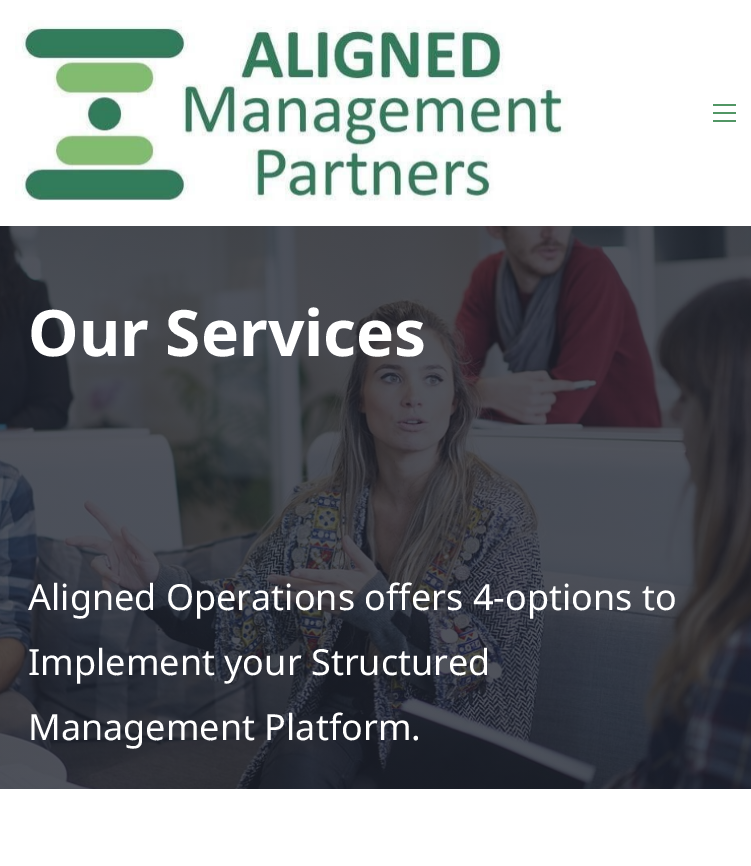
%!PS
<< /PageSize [751 866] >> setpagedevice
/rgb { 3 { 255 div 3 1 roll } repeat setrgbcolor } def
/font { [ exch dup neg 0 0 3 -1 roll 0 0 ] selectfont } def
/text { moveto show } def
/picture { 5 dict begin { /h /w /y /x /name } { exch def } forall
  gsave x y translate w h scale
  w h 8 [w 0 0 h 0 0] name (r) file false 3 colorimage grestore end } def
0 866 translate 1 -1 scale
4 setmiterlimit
255 255 255 rgb
0 0 751 866 rectfill
(img_01.rgb) 15 20 553 181 picture
81 150 100 rgb
713 104 23 2 rectfill
713 112 23 2 rectfill
713 120 23 2 rectfill
(img_02.rgb) 0 226 751 563 picture
/NotoSans-Bold 64 font
255 255 255 rgb
(Our Services) 28 356 text
/NotoSans-Regular 36 font
(Aligned Operations offers 4-options to) 28 610 text
(Implement your Structured) 28 675 text
(Management Platform.) 28 740 text
showpage
